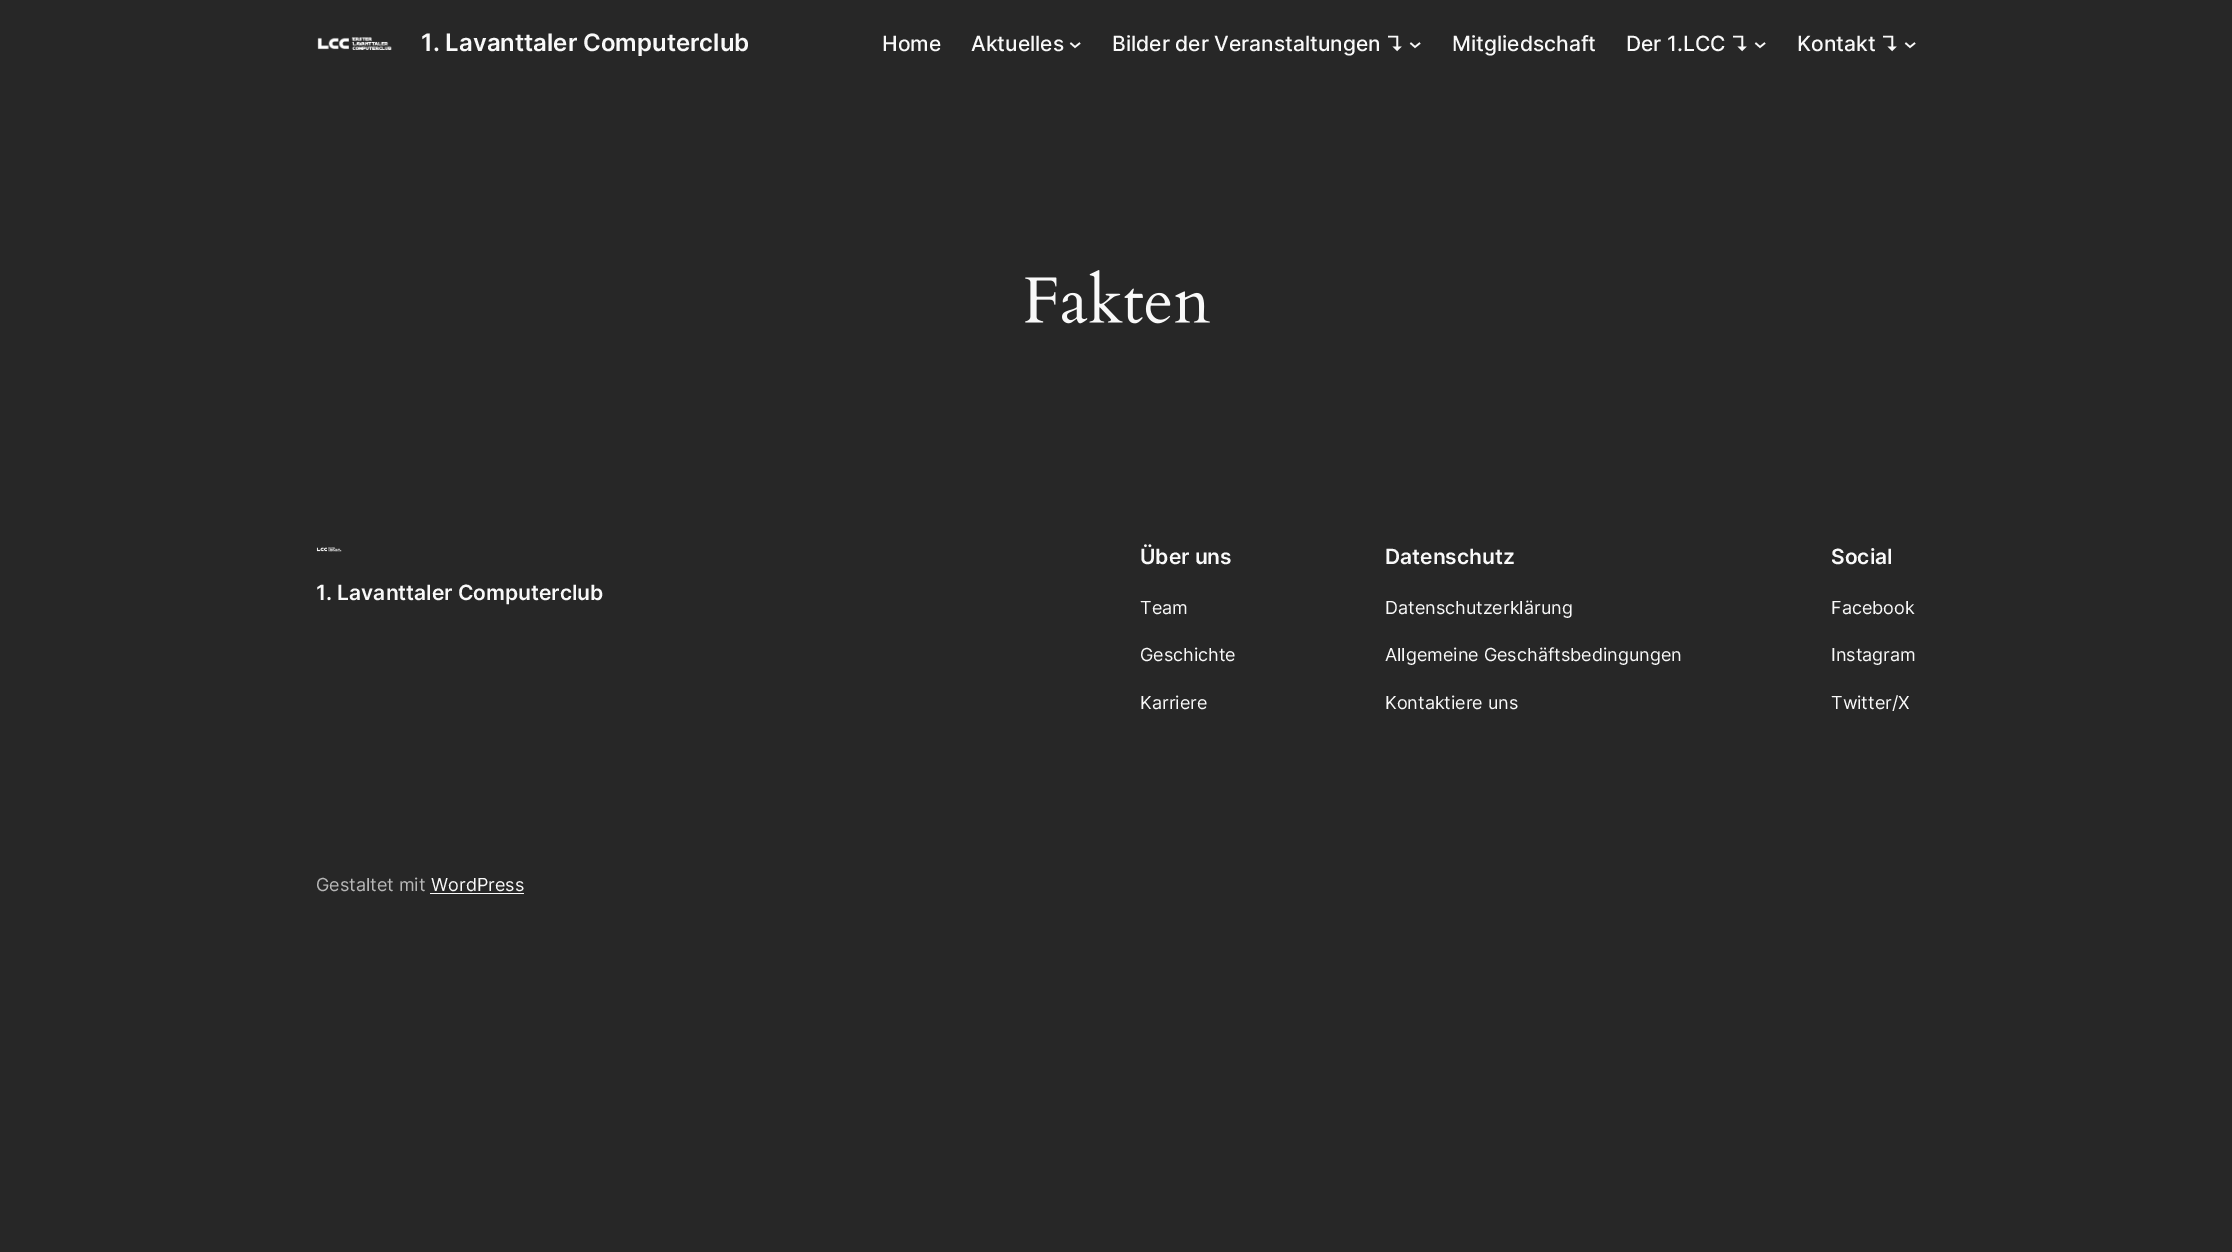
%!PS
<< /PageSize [2232 1252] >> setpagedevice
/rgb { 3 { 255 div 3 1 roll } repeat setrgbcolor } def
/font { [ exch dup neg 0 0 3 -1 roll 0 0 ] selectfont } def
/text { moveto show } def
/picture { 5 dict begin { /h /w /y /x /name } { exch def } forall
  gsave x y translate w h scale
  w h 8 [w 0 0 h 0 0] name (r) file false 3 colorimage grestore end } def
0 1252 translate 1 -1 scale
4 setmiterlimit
39 39 39 rgb
0 0 2232 1252 rectfill
(img_01.rgb) 317 37 75 13 picture
249 249 249 rgb
1.6 setlinewidth
1070.5 43 moveto 4.5 4 rlineto 5 -4 rlineto stroke
1410.5 43 moveto 4.5 4 rlineto 5 -4 rlineto stroke
1755.5 43 moveto 4.5 4 rlineto 5 -4 rlineto stroke
1905.5 43 moveto 4.5 4 rlineto 5 -4 rlineto stroke
(img_02.rgb) 1025 270 185 54 picture
(img_03.rgb) 316 547 26 5 picture
430 893 94 1 rectfill
/Inter-SemiBold 24 font
(1. Lavanttaler Computerclub) 421 51 text
/Inter-Medium 21 font
(Home) 882 51 text
(Aktuelles) 971 51 text
(Bilder der Veranstaltungen ↴) 1112 51 text
(Mitgliedschaft) 1452 51 text
(Der 1.LCC ↴) 1626 51 text
(Kontakt ↴) 1797 51 text
/Inter-SemiBold 21 font
(1. Lavanttaler Computerclub) 316 600 text
(Über uns) 1140 564 text
/Inter-Regular 18 font
(Team) 1140 614 text
(Geschichte) 1140 661 text
(Karriere) 1140 709 text
/Inter-SemiBold 21 font
(Datenschutz) 1385 564 text
/Inter-Regular 18 font
(Datenschutzerklärung) 1385 614 text
(Allgemeine Geschäftsbedingungen) 1385 661 text
(Kontaktiere uns) 1385 709 text
/Inter-SemiBold 21 font
(Social) 1831 564 text
/Inter-Regular 18 font
(Facebook) 1831 614 text
(Instagram) 1831 661 text
(Twitter/X) 1831 709 text
183 183 183 rgb
(Gestaltet mit) 316 891 text
249 249 249 rgb
(WordPress) 431 891 text
showpage
